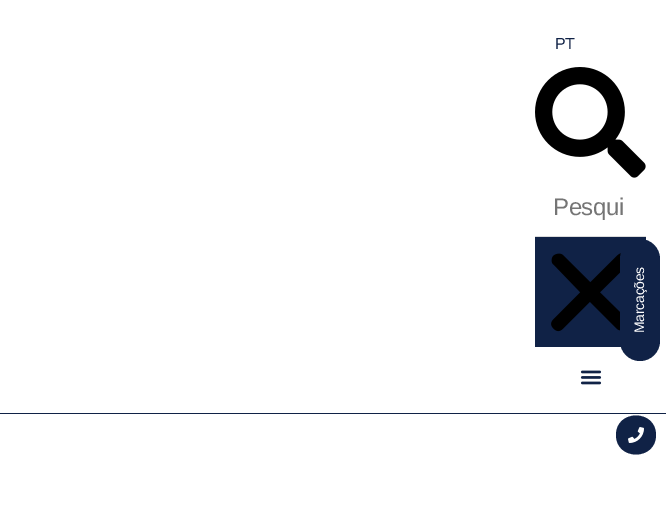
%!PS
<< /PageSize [666 505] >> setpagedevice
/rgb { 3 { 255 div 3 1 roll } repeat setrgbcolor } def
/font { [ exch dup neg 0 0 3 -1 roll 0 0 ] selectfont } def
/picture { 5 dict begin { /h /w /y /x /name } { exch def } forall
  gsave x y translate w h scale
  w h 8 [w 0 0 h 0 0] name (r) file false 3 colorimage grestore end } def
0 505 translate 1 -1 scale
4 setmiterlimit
255 255 255 rgb
0 0 666 505 rectfill
16 34 70 rgb
0 413 666 1 rectfill
(img_01.rgb) 535 67 111 111 picture
535 237 111 110 rectfill
219 219 219 rgb
535 236 111 1 rectfill
(img_02.rgb) 551 253 70 79 picture
(img_03.rgb) 580 370 22 15 picture
16 34 70 rgb
620 341 moveto 0 -82 rlineto 0 -11 9 -20 20 -20 rcurveto 11 0 20 9 20 20 rcurveto 0 82 rlineto 0 11 -9 20 -20 20 rcurveto -11 0 -20 -9 -20 -20 rcurveto closepath fill
616 435 moveto 0 -26 40 -26 40 0 rcurveto 0 26 -40 26 -40 0 rcurveto closepath fill
(img_04.rgb) 628 427 16 16 picture
/LiberationSans-Regular 16 font
555 49 moveto -0.25 0 (PT) ashow
/LiberationSans-Regular 24 font
117 117 117 rgb
553 215 moveto -0.5 0 (Pesqui) ashow
/LiberationSans-Regular 14 font
255 255 255 rgb
gsave 644 333 translate -90 rotate 0 0 moveto -0.25 0 (Marcações) ashow grestore
showpage
